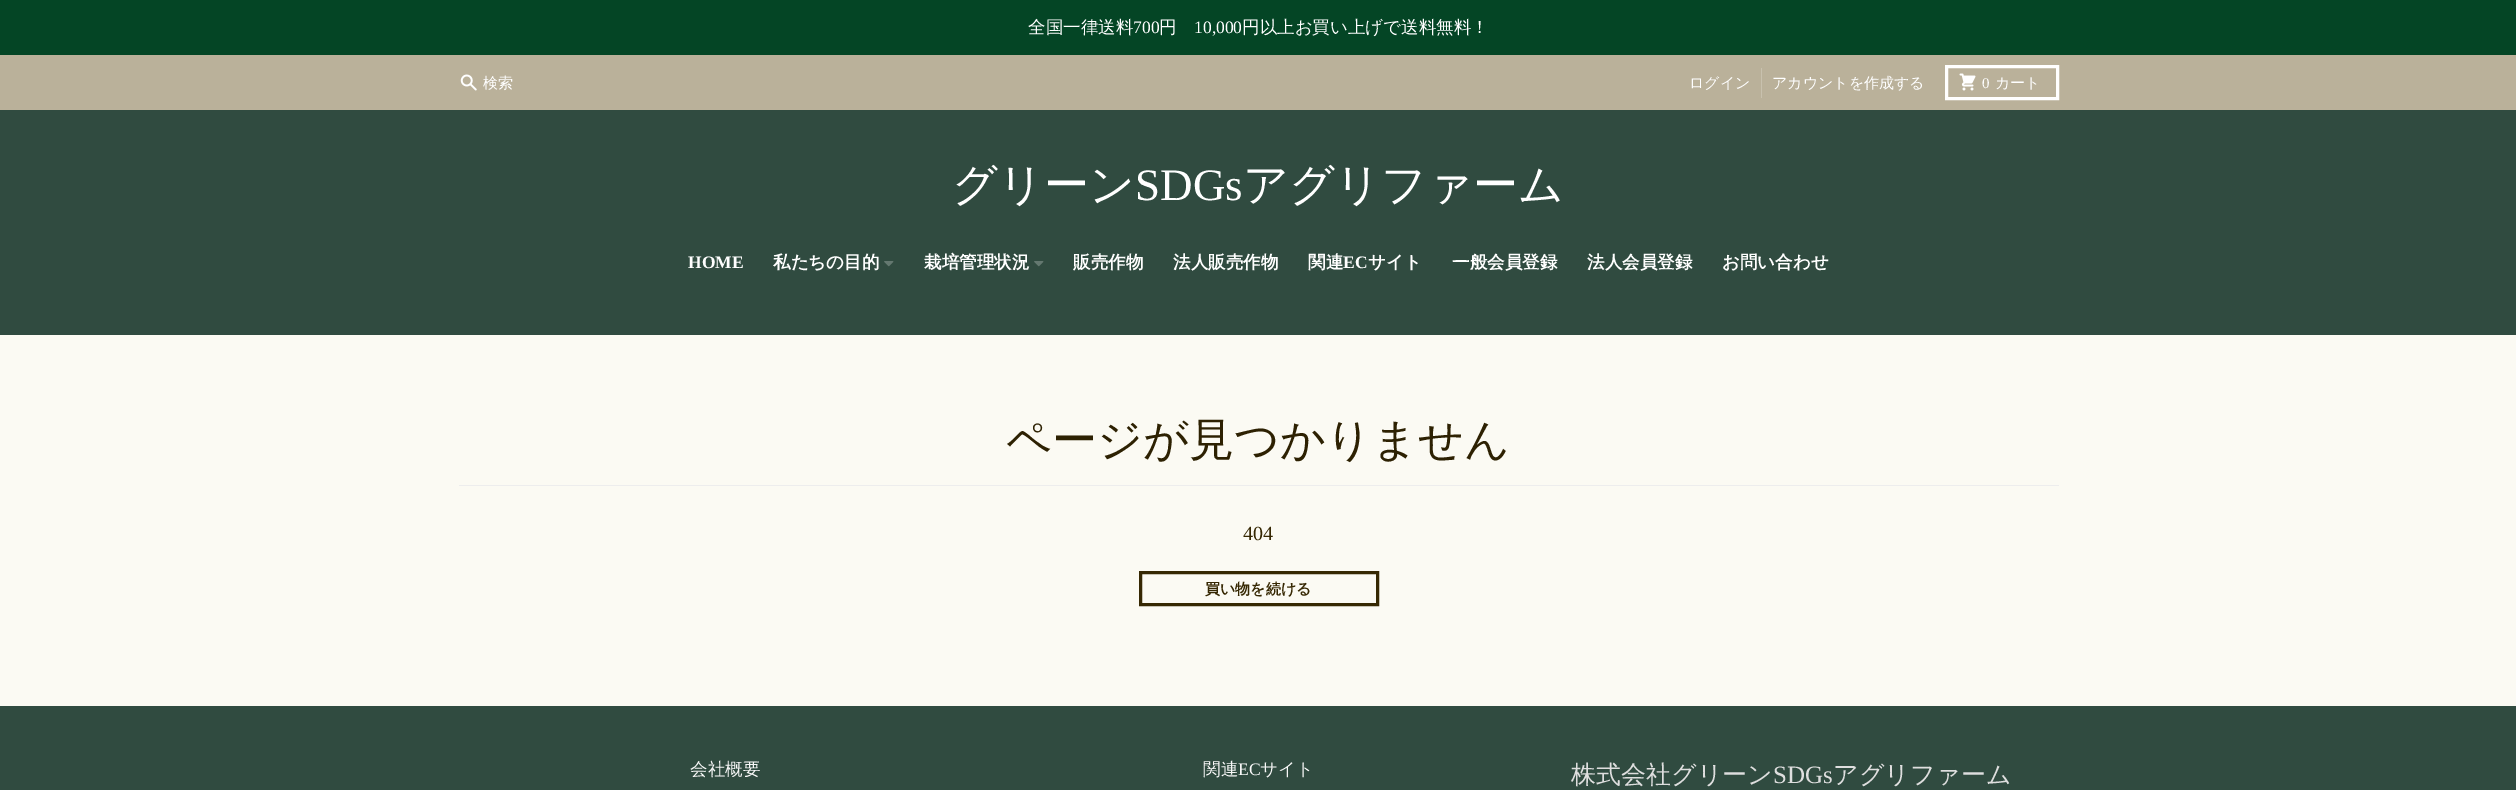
%!PS
<< /PageSize [2516 790] >> setpagedevice
/rgb { 3 { 255 div 3 1 roll } repeat setrgbcolor } def
/font { [ exch dup neg 0 0 3 -1 roll 0 0 ] selectfont } def
/text { moveto show } def
/picture { 5 dict begin { /h /w /y /x /name } { exch def } forall
  gsave x y translate w h scale
  w h 8 [w 0 0 h 0 0] name (r) file false 3 colorimage grestore end } def
0 790 translate 1 -1 scale
4 setmiterlimit
48 75 64 rgb
0 0 2516 790 rectfill
4 69 37 rgb
0 0 2516 55 rectfill
186 177 154 rgb
0 55 2516 55 rectfill
(img_01.rgb) 460 74 17 17 picture
200 193 174 rgb
1761 68 1 30 rectfill
255 255 255 rgb
3 setlinewidth
1946.5 66.5 111 32 rectstroke
(img_02.rgb) 1959 73 17 18 picture
(img_03.rgb) 884 261 10 6 picture
(img_03.rgb) 1034 261 10 6 picture
251 250 243 rgb
0 335 2516 371 rectfill
237 237 237 rgb
459 485 1600 1 rectfill
54 40 3 rgb
1140.5 572.5 237 32 rectstroke
/WenQuanYiZenHei-Medium 17.5 font
255 255 255 rgb
(全国一律送料) 1028 33 text
/LiberationSerif-Regular 17.5 font
(700) 1133 33 text
/WenQuanYiZenHei-Medium 17.5 font
(円) 1159 33 text
/LiberationSerif-Regular 17.5 font
(10,000) 1194 33 text
/WenQuanYiZenHei-Medium 17.5 font
(円以上お買い上げで送料無料！) 1242 33 text
/WenQuanYiZenHei-Medium 15 font
(検索) 483 88 text
(ログイン) 1689 88 text
(アカウントを作成する) 1772 88 text
/LiberationSerif-Regular 15 font
(0) 1982 88 text
/WenQuanYiZenHei-Medium 15 font
(カート) 1995 88 text
/WenQuanYiZenHei-Medium 45 font
(グリーン) 952 200 text
/LiberationSerif-Regular 45 font
(SDGs) 1135 200 text
/WenQuanYiZenHei-Medium 45 font
(アグリファーム) 1243 200 text
/LiberationSerif-Bold 17.5 font
(HOME) 688 268 text
/WenQuanYiZenHei-Bold 17.5 font
(私たちの目的) 773 268 text
(栽培管理状況) 924 268 text
(販売作物) 1073 268 text
(法人販売作物) 1173 268 text
(関連) 1308 268 text
/LiberationSerif-Bold 17.5 font
(EC) 1343 268 text
/WenQuanYiZenHei-Bold 17.5 font
(サイト) 1368 268 text
(一般会員登録) 1452 268 text
(法人会員登録) 1587 268 text
(お問い合わせ) 1722 268 text
/WenQuanYiZenHei-Medium 45 font
45 33 2 rgb
(ページが見つかりません) 1006 455 text
/LiberationSerif-Regular 20 font
54 40 3 rgb
(404) 1243 540 text
/WenQuanYiZenHei-Bold 15 font
(買い物を続ける) 1205 594 text
/WenQuanYiZenHei-Medium 17.5 font
248 248 248 rgb
(会社概要) 690 775 text
(関連) 1203 775 text
/LiberationSerif-Regular 17.5 font
(EC) 1238 775 text
/WenQuanYiZenHei-Medium 17.5 font
(サイト) 1260 775 text
/WenQuanYiZenHei-Medium 25 font
222 222 222 rgb
(株式会社グリーン) 1571 783 text
/LiberationSerif-Regular 25 font
(SDGs) 1773 783 text
/WenQuanYiZenHei-Medium 25 font
(アグリファーム) 1833 783 text
showpage
